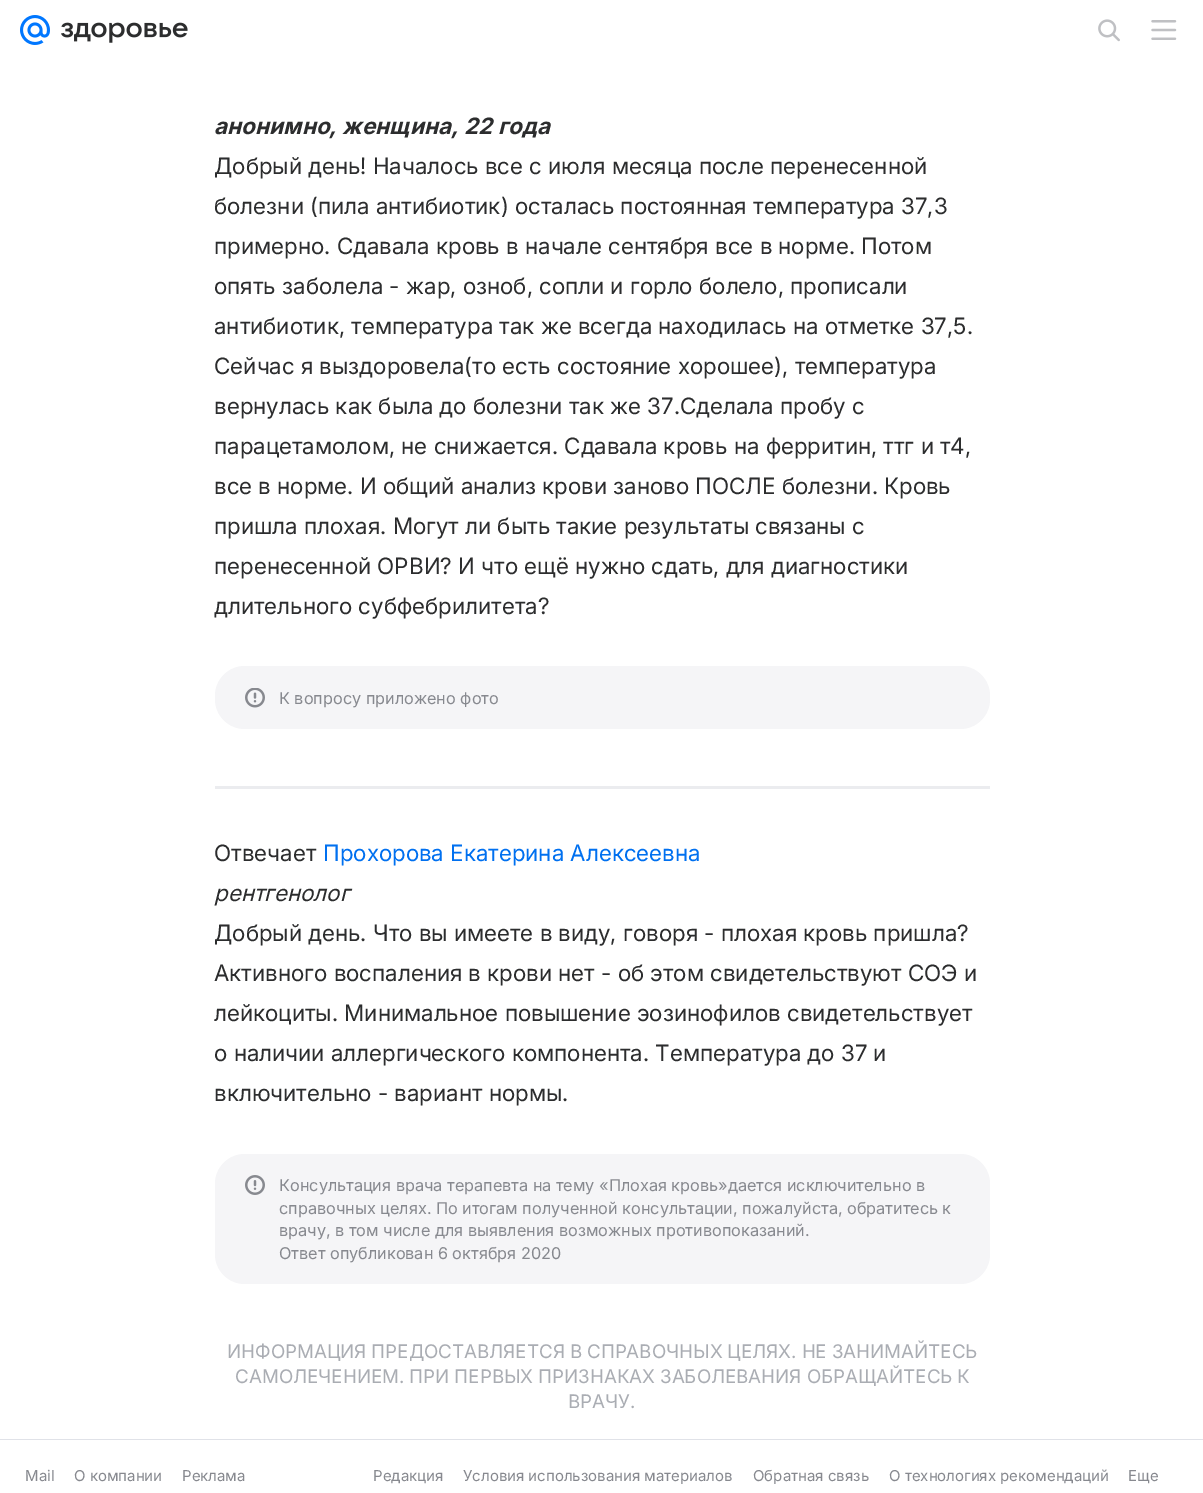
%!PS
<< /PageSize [1203 1493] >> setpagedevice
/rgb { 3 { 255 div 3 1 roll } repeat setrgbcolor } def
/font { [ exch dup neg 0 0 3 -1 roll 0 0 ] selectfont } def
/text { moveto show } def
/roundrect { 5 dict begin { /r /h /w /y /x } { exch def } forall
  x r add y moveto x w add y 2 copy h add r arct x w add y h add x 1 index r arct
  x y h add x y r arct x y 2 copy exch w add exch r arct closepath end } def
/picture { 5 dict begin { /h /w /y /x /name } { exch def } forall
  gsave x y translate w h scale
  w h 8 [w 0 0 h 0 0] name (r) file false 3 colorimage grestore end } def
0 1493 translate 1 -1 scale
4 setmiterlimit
255 255 255 rgb
0 0 1203 1493 rectfill
(img_01.rgb) 20 15 30 30 picture
(img_02.rgb) 61 22 127 21 picture
(img_03.rgb) 1098 19 22 23 picture
(img_04.rgb) 1151 20 26 20 picture
245 245 247 rgb
215 666 775 63 30 roundrect fill
(img_05.rgb) 245 688 20 20 picture
235 236 239 rgb
215 786 775 3 rectfill
245 245 247 rgb
215 1154 775 130 30 roundrect fill
(img_06.rgb) 245 1175 20 20 picture
224 226 232 rgb
0 1439 1203 1 rectfill
/Inter-BoldItalic 22.5 font
44 45 46 rgb
214 134 moveto 0.07 0 (анонимно, женщина, 22 года) ashow
/Inter-Regular 22.5 font
214 174 moveto 0.07 0 (Добрый день! Началось все с июля месяца после перенесенной) ashow
214 214 moveto 0.07 0 (болезни \(пила антибиотик\) осталась постоянная температура 37,3) ashow
214 254 moveto 0.07 0 (примерно. Сдавала кровь в начале сентября все в норме. Потом) ashow
214 294 moveto 0.07 0 (опять заболела - жар, озноб, сопли и горло болело, прописали) ashow
214 334 moveto 0.07 0 (антибиотик, температура так же всегда находилась на отметке 37,5.) ashow
214 374 moveto 0.07 0 (Сейчас я выздоровела\(то есть состояние хорошее\), температура) ashow
214 414 moveto 0.07 0 (вернулась как была до болезни так же 37.Сделала пробу с) ashow
214 454 moveto 0.07 0 (парацетамолом, не снижается. Сдавала кровь на ферритин, ттг и т4,) ashow
214 494 moveto 0.07 0 (все в норме. И общий анализ крови заново ПОСЛЕ болезни. Кровь) ashow
214 534 moveto 0.07 0 (пришла плохая. Могут ли быть такие результаты связаны с) ashow
214 574 moveto 0.07 0 (перенесенной ОРВИ? И что ещё нужно сдать, для диагностики) ashow
214 614 moveto 0.07 0 (длительного субфебрилитета?) ashow
/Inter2-Regular 16.25 font
135 137 143 rgb
(К вопросу приложено фото) 279 704 text
/Inter-Regular 22.5 font
44 45 46 rgb
214 861 moveto 0.07 0 (Отвечает) ashow
0 112 240 rgb
323 861 moveto 0.07 0 (Прохорова Екатерина Алексеевна) ashow
/Inter-Italic 22.5 font
44 45 46 rgb
214 901 moveto 0.07 0 (рентгенолог) ashow
/Inter-Regular 22.5 font
214 941 moveto 0.07 0 (Добрый день. Что вы имеете в виду, говоря - плохая кровь пришла?) ashow
214 981 moveto 0.07 0 (Активного воспаления в крови нет - об этом свидетельствуют СОЭ и) ashow
214 1021 moveto 0.07 0 (лейкоциты. Минимальное повышение эозинофилов свидетельствует) ashow
214 1061 moveto 0.07 0 (о наличии аллергического компонента. Температура до 37 и) ashow
214 1101 moveto 0.07 0 (включительно - вариант нормы.) ashow
/Inter2-Regular 16.25 font
135 137 143 rgb
(Консультация врача терапевта на тему «Плохая кровь»дается исключительно в) 279 1191 text
(справочных целях. По итогам полученной консультации, пожалуйста, обратитесь к) 279 1214 text
(врачу, в том числе для выявления возможных противопоказаний.) 279 1236 text
(Ответ опубликован 6 октября 2020) 279 1259 text
/Inter2-Regular 18.75 font
170 173 179 rgb
227 1358 moveto -0.25 0 32 (ИНФОРМАЦИЯ ПРЕДОСТАВЛЯЕТСЯ В СПРАВОЧНЫХ ЦЕЛЯХ. НЕ ЗАНИМАЙТЕСЬ) widthshow
235 1383 moveto -0.25 0 32 (САМОЛЕЧЕНИЕМ. ПРИ ПЕРВЫХ ПРИЗНАКАХ ЗАБОЛЕВАНИЯ ОБРАЩАЙТЕСЬ К) widthshow
(ВРАЧУ.) 568 1408 text
/Inter2-Regular 15 font
135 137 143 rgb
(Mail) 25 1481 text
(О компании) 74 1481 text
(Реклама) 182 1481 text
(Редакция) 373 1481 text
(Условия использования материалов) 463 1481 text
(Обратная связь) 753 1481 text
(О технологиях рекомендаций) 889 1481 text
(Еще) 1128 1481 text
showpage
